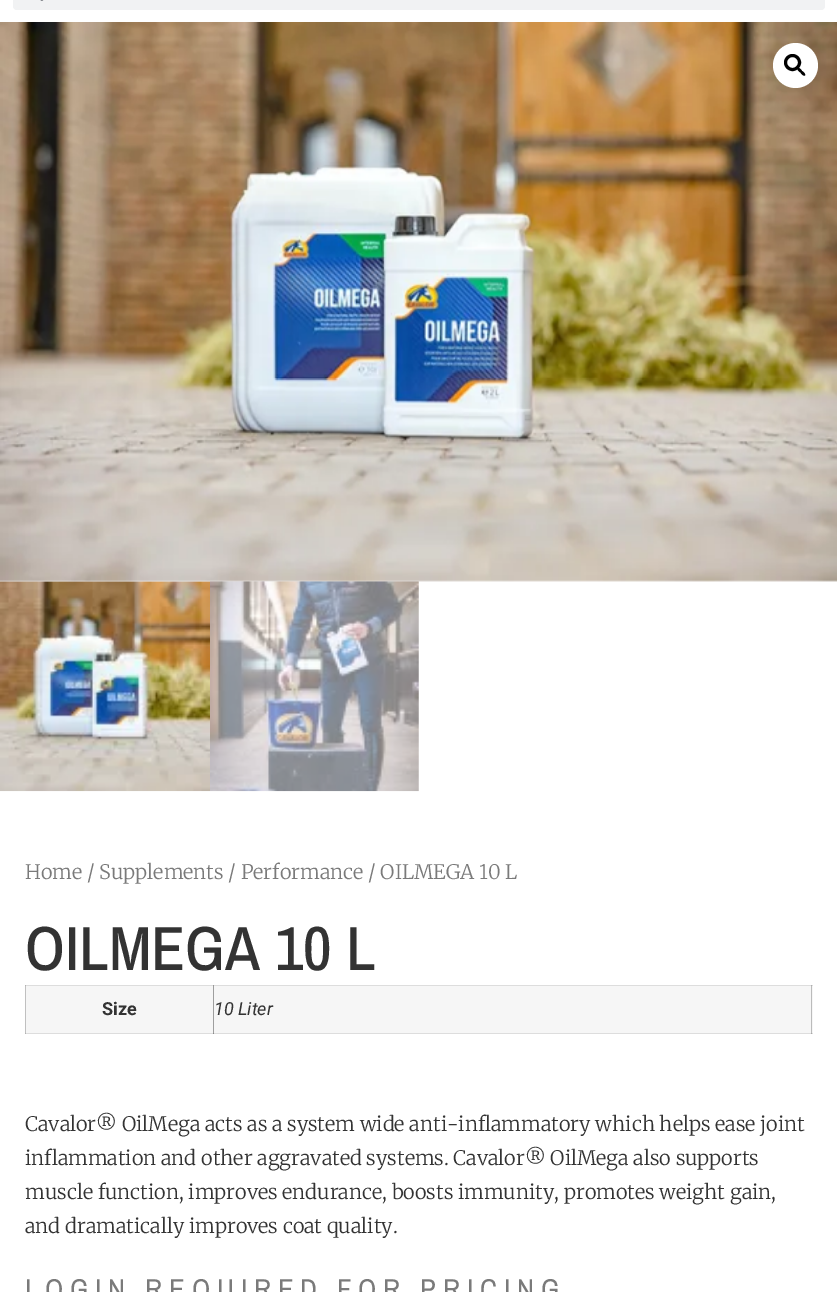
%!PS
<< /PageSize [837 1292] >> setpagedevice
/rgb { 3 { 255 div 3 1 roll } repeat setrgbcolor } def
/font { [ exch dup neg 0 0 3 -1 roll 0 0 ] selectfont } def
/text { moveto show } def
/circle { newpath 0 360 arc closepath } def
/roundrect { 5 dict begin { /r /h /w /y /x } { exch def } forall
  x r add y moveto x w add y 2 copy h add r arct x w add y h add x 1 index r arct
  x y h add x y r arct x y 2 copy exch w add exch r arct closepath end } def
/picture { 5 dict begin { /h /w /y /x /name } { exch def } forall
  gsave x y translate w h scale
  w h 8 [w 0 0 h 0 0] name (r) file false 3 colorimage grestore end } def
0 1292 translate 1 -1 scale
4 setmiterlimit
255 255 255 rgb
0 0 837 1292 rectfill
192 192 192 rgb
25 985 1 49 rectfill
179 179 179 rgb
25 1033 1 1 rectfill
25 985 1 1 rectfill
241 242 243 rgb
13 -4 812 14 4 roundrect fill
(img_01.rgb) 40 0 4 1 picture
(img_03.rgb) 0 581 210 211 picture
(img_02.rgb) 0 22 837 560 picture
255 255 255 rgb
795.5 65.5 22.5 circle fill
0 0 0 rgb
3 setlinewidth
792.5 62.5 7 circle stroke
797.5 68 moveto 1.5 -1 4 2 4.5 3 rcurveto 1 0.5 4 3 3 4.5 rcurveto -1.5 1 -4 -2 -4.5 -3 rcurveto -1 -0.5 -4 -3 -3 -4.5 rcurveto closepath fill
(img_04.rgb) 210 581 209 211 picture
246 246 246 rgb
26 986 187 47 rectfill
221 221 221 rgb
26 1033 787 1 rectfill
158 158 158 rgb
213 985 1 49 rectfill
137 137 137 rgb
213 1033 1 1 rectfill
221 221 221 rgb
26 985 188 1 rectfill
152 152 152 rgb
213 985 1 1 rectfill
246 246 246 rgb
214 986 599 47 rectfill
187 187 187 rgb
811 985 1 49 rectfill
168 168 168 rgb
811 1033 1 1 rectfill
221 221 221 rgb
214 985 599 1 rectfill
175 175 175 rgb
811 985 1 1 rectfill
/Merriweather-Light 20 font
122 122 122 rgb
(Home / Supplements / Performance / OILMEGA 10 L) 25 879 text
/ArchivoNarrow-Medium 62.5 font
51 51 51 rgb
(OILMEGA 10 L) 25 970 text
/Roboto-Bold 18 font
(Size) 102 1015 text
/Roboto-Italic 18 font
(10 Liter) 214 1015 text
/Merriweather-Light 20 font
(Cavalor® OilMega acts as a system wide anti-inflammatory which helps ease joint) 25 1131 text
(inflammation and other aggravated systems. Cavalor® OilMega also supports) 25 1165 text
(muscle function, improves endurance, boosts immunity, promotes weight gain,) 25 1199 text
(and dramatically improves coat quality.) 25 1233 text
/ArchivoNarrow-Regular 28.75 font
122 122 122 rgb
25 1299 moveto 6.75 0 (LOGIN REQUIRED FOR PRICING) ashow
showpage
